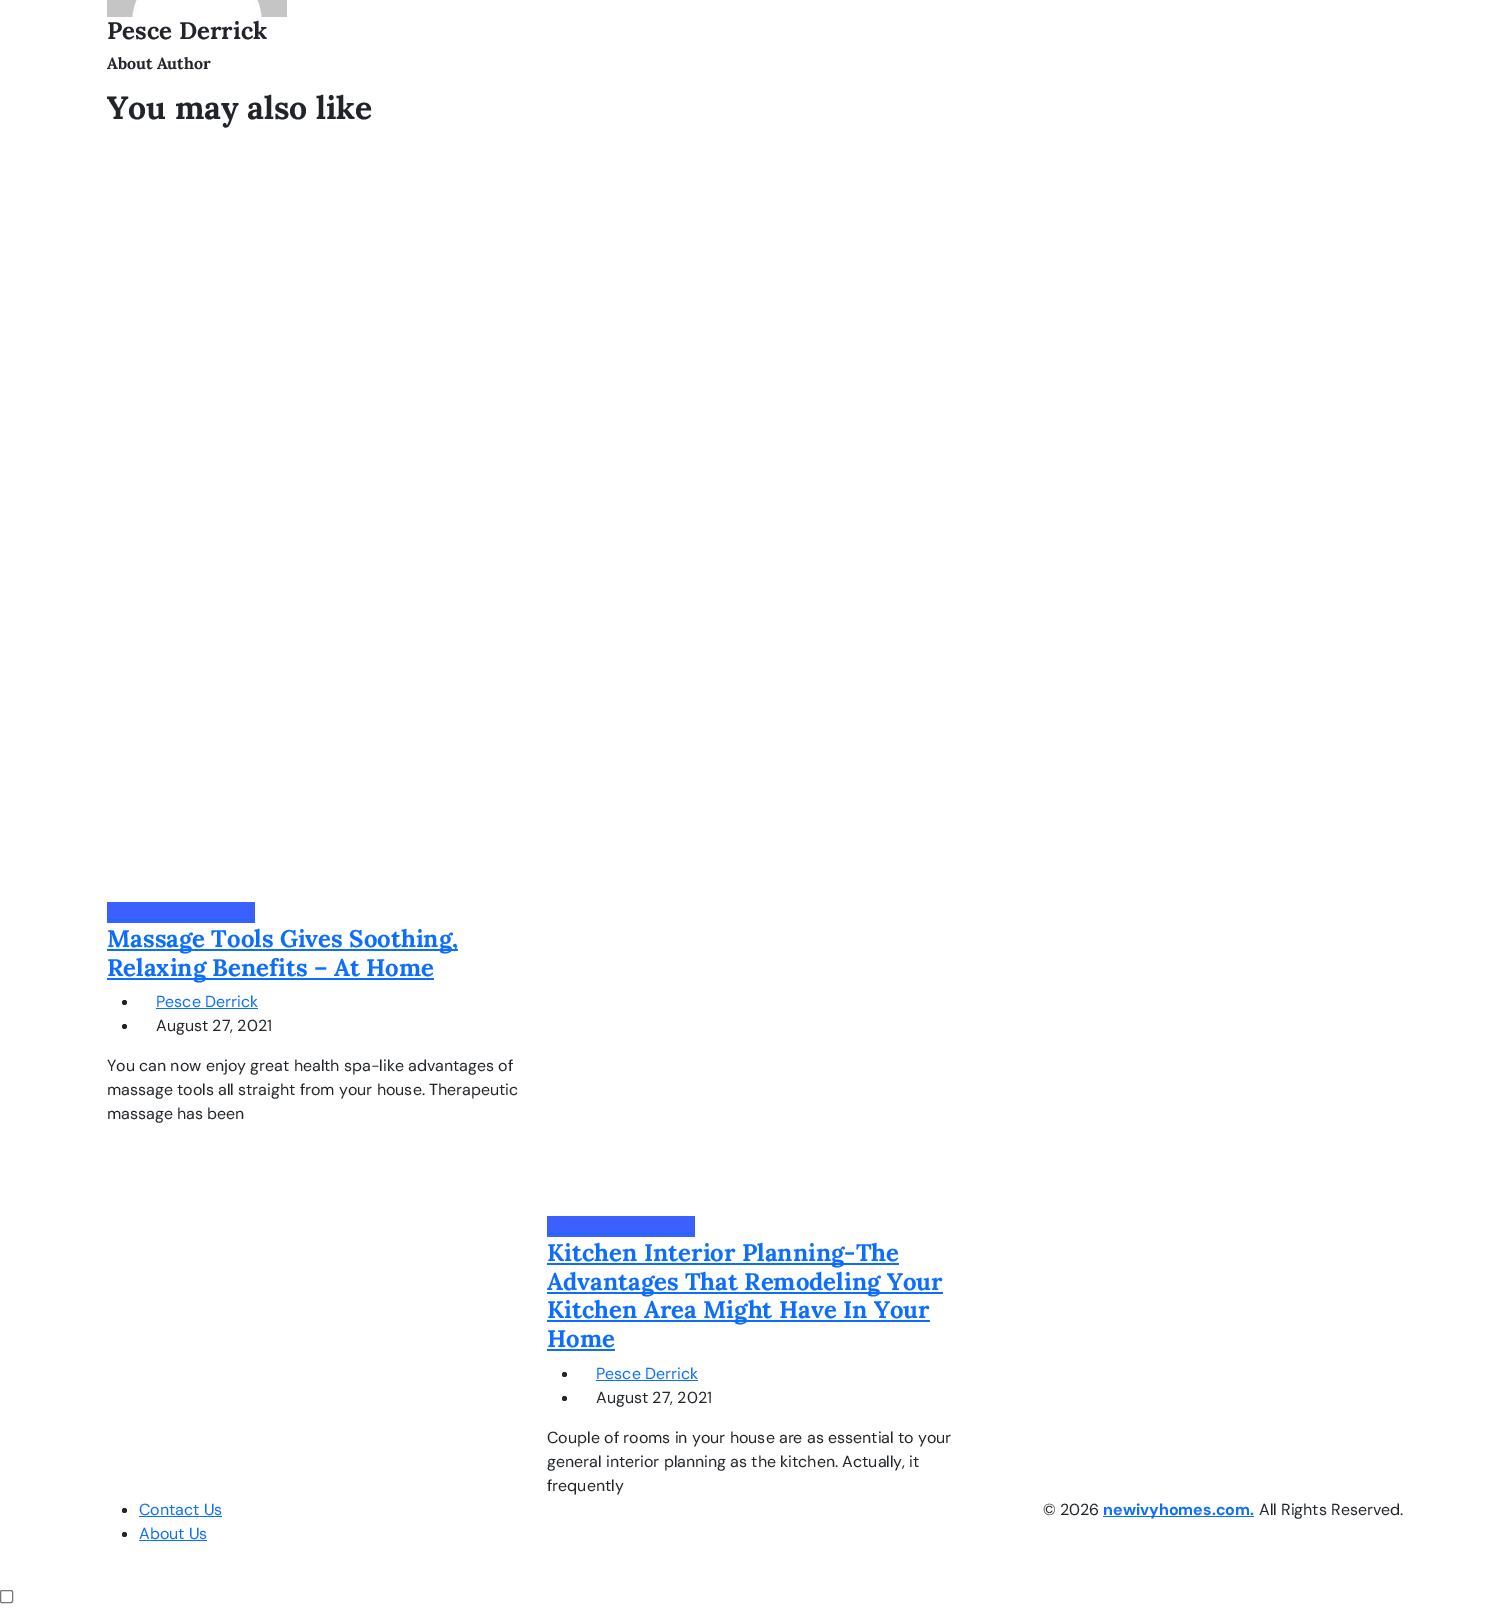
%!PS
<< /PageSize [1510 1610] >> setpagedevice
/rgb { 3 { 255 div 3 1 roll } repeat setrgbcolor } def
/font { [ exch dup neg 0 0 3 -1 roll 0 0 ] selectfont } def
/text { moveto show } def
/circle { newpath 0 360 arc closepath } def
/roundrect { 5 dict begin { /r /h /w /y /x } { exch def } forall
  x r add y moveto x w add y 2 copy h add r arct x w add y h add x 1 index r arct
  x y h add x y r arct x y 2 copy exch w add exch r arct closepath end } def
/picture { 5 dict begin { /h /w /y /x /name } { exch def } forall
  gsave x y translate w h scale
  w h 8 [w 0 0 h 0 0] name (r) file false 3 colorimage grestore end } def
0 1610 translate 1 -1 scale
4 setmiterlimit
255 255 255 rgb
0 0 1510 1610 rectfill
(img_01.rgb) 107 0 180 17 picture
59 96 254 rgb
107 902 148 21 rectfill
13 110 253 rgb
107 919 148 1 rectfill
107 949 351 2 rectfill
107 978 327 2 rectfill
33 37 41 rgb
124.5 1002.5 2.5 circle fill
13 110 253 rgb
156 1008 102 1 rectfill
33 37 41 rgb
124.5 1026.5 2.5 circle fill
59 96 254 rgb
547 1216 148 21 rectfill
13 110 253 rgb
547 1233 148 1 rectfill
547 1263 352 2 rectfill
547 1292 396 2 rectfill
547 1320 383 2 rectfill
547 1349 68 2 rectfill
33 37 41 rgb
564.5 1374.5 2.5 circle fill
13 110 253 rgb
596 1380 102 1 rectfill
33 37 41 rgb
564.5 1398.5 2.5 circle fill
124.5 1510.5 2.5 circle fill
13 110 253 rgb
139 1516 83 1 rectfill
33 37 41 rgb
124.5 1534.5 2.5 circle fill
13 110 253 rgb
139 1540 68 1 rectfill
1103 1516 151 1 rectfill
118 118 118 rgb
0.5 1590.5 12 12 1.5 roundrect stroke
/Lora-Bold 24 font
33 37 41 rgb
(Pesce Derrick) 107 39 text
/Lora-Bold 16 font
(About Author) 107 69 text
/Lora-Bold 32 font
(You may also like) 107 119 text
/Lora-Bold 24 font
13 110 253 rgb
(Massage Tools Gives Soothing,) 107 947 text
(Relaxing Benefits – At Home) 107 976 text
/DMSans-Regular 16 font
(Pesce Derrick) 156 1007 text
33 37 41 rgb
(August 27, 2021) 156 1031 text
(You can now enjoy great health spa-like advantages of) 107 1071 text
(massage tools all straight from your house. Therapeutic) 107 1095 text
(massage has been) 107 1119 text
/Lora-Bold 24 font
13 110 253 rgb
(Kitchen Interior Planning-The) 547 1261 text
(Advantages That Remodeling Your) 547 1290 text
(Kitchen Area Might Have In Your) 547 1318 text
(Home) 547 1347 text
/DMSans-Regular 16 font
(Pesce Derrick) 596 1379 text
33 37 41 rgb
(August 27, 2021) 596 1403 text
(Couple of rooms in your house are as essential to your) 547 1443 text
(general interior planning as the kitchen. Actually, it) 547 1467 text
(frequently) 547 1491 text
13 110 253 rgb
(Contact Us) 139 1515 text
(About Us) 139 1539 text
33 37 41 rgb
(© 2026) 1043 1515 text
/DMSans-Bold 16 font
13 110 253 rgb
(newivyhomes.com.) 1103 1515 text
/DMSans-Regular 16 font
33 37 41 rgb
(All Rights Reserved.) 1259 1515 text
showpage
